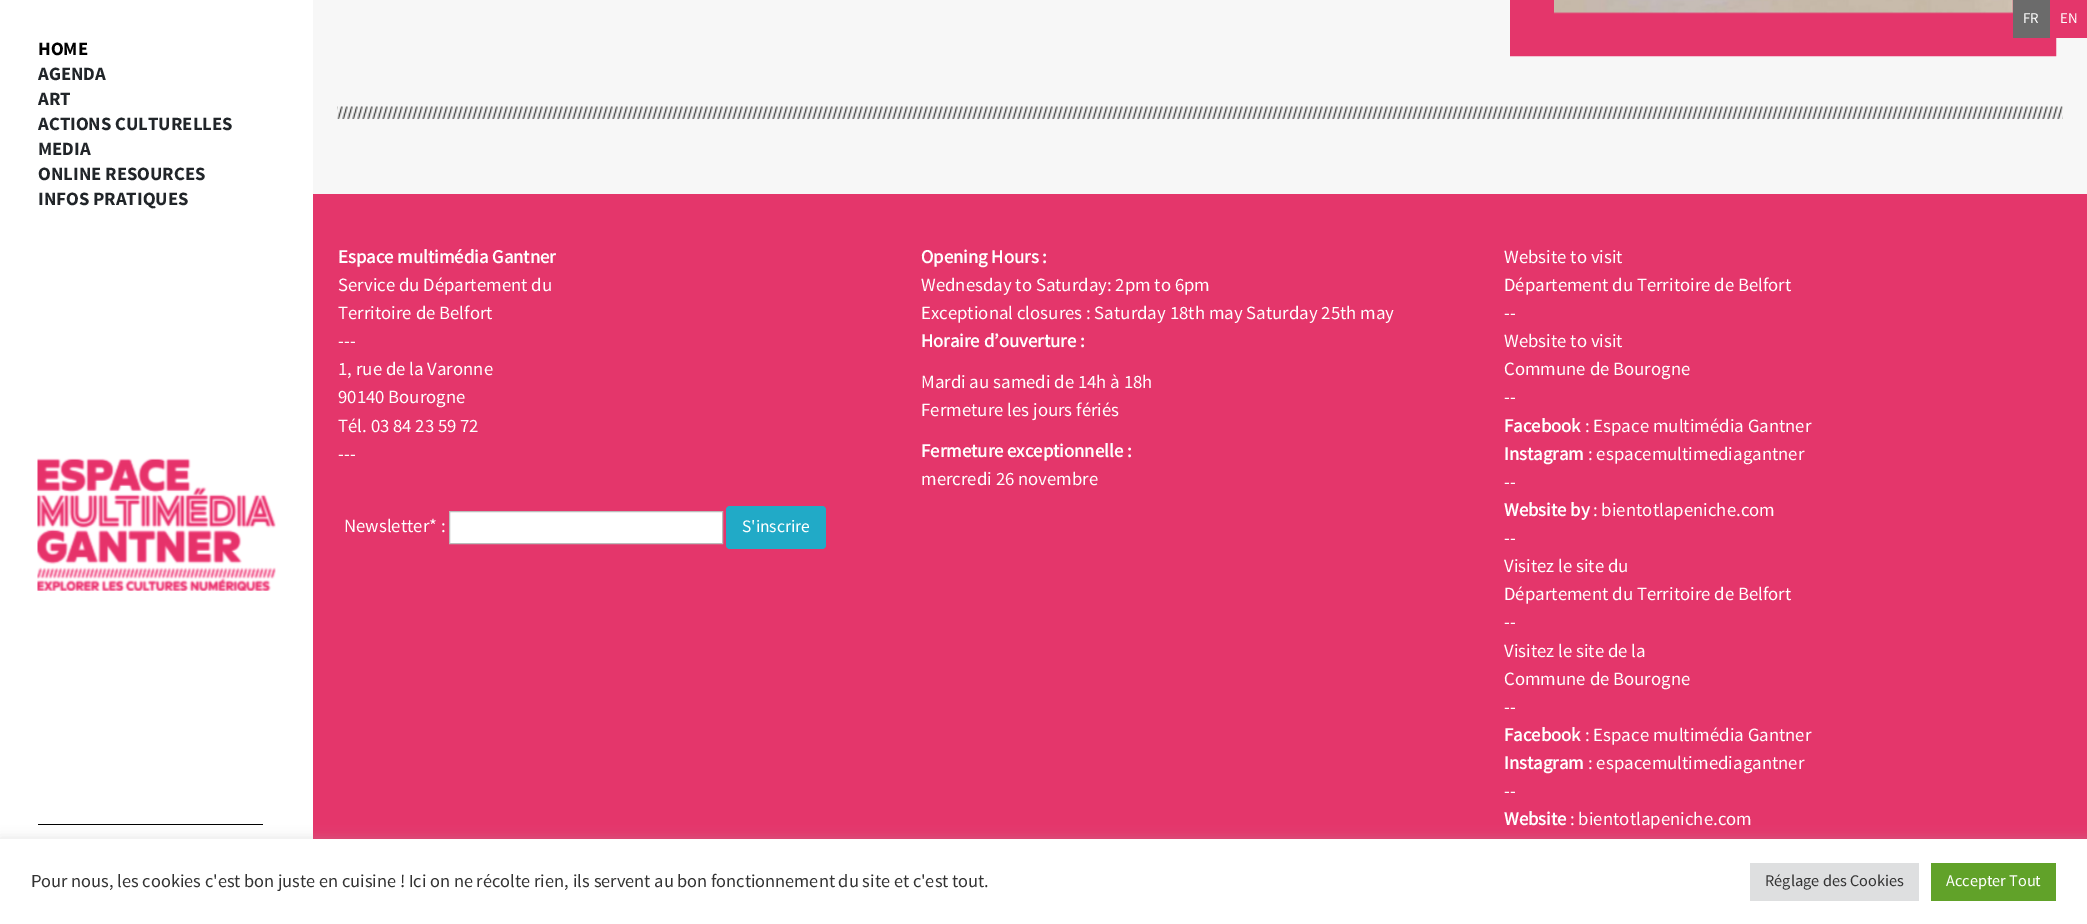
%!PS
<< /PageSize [2087 924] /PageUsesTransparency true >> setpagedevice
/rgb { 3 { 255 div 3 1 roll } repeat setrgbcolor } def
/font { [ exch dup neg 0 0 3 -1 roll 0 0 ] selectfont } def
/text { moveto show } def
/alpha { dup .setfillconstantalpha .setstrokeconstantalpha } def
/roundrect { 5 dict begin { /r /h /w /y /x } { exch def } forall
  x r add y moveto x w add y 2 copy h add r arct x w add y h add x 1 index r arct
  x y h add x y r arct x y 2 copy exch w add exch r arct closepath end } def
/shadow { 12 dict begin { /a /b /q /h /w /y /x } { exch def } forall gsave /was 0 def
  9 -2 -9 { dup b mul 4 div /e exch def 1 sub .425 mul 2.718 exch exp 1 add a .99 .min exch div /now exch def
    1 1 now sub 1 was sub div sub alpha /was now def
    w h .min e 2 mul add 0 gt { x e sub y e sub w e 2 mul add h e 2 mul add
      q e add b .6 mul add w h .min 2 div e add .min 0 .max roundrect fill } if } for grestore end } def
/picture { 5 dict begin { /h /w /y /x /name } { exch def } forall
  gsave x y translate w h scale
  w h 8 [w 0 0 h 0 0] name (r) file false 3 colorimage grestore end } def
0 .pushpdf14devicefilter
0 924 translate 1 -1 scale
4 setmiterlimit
247 247 247 rgb
0 0 2087 924 rectfill
228 54 107 rgb
44 setlinewidth
1532 -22 502 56 rectstroke
107 107 107 rgb
2013 0 37 38 rectfill
228 54 107 rgb
2056 0 31 38 rectfill
255 255 255 rgb
0 0 313 839 rectfill
(img_01.rgb) 37 458 239 133 picture
0 0 0 rgb
38 824 225 1 rectfill
(img_02.rgb) 1554 0 459 14 picture
(img_03.rgb) 337 106 1726 13 picture
228 54 107 rgb
313 194 1774 645 rectfill
255 255 255 rgb
449.5 511.5 moveto 273 0 rlineto 0 32 rlineto -273 0 rlineto closepath gsave fill grestore
187 187 187 rgb
1 setlinewidth
stroke
33 170 199 rgb
726 506 100 43 4 roundrect fill
172 171 171 rgb
0 838 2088 86 0 6 0.3 shadow
255 255 255 rgb
0 839 2087 85 rectfill
222 223 224 rgb
1750 863 169 38 rectfill
97 162 41 rgb
1931 863 125 38 rectfill
/SourceSansPro-Regular 15 font
255 255 255 rgb
(FR) 2023 23 text
(EN) 2060 23 text
/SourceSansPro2-Bold 18.75 font
0 0 0 rgb
(HOME) 38 55 text
33 37 41 rgb
(AGENDA) 38 80 text
(ART) 38 105 text
(ACTIONS CULTURELLES) 38 130 text
(MEDIA) 38 155 text
(ONLINE RESOURCES) 38 180 text
(INFOS PRATIQUES) 38 205 text
/SourceSansPro-Bold 18.75 font
255 255 255 rgb
(Espace multimédia Gantner) 338 263 text
/SourceSansPro-Regular 18.75 font
(Service du Département du) 338 291 text
(Territoire de Belfort) 338 319 text
(---) 338 347 text
(1, rue de la Varonne) 338 375 text
(90140 Bourogne) 338 403 text
(Tél. 03 84 23 59 72) 338 432 text
(---) 338 460 text
(Newsletter* :) 344 532 text
/SourceSansPro-Regular 17.5 font
(S'inscrire) 742 532 text
/SourceSansPro-Bold 18.75 font
(Opening Hours :) 921 263 text
/SourceSansPro-Regular 18.75 font
(Wednesday to Saturday: 2pm to 6pm) 921 291 text
(Exceptional closures : Saturday 18th may Saturday 25th may) 921 319 text
/SourceSansPro-Bold 18.75 font
(Horaire d’ouverture :) 921 347 text
/SourceSansPro-Regular 18.75 font
(Mardi au samedi de 14h à 18h) 921 388 text
(Fermeture les jours fériés) 921 416 text
/SourceSansPro-Bold 18.75 font
(Fermeture exceptionnelle :) 921 457 text
/SourceSansPro-Regular 18.75 font
(mercredi 26 novembre) 921 485 text
(Website to visit) 1504 263 text
(Département du Territoire de Belfort) 1504 291 text
(--) 1504 319 text
(Website to visit) 1504 347 text
(Commune de Bourogne) 1504 375 text
(--) 1504 403 text
/SourceSansPro-Bold 18.75 font
(Facebook) 1504 432 text
/SourceSansPro-Regular 18.75 font
(: Espace multimédia Gantner) 1585 432 text
/SourceSansPro-Bold 18.75 font
(Instagram) 1504 460 text
/SourceSansPro-Regular 18.75 font
(: espacemultimediagantner) 1588 460 text
(--) 1504 488 text
/SourceSansPro-Bold 18.75 font
(Website by) 1504 516 text
/SourceSansPro-Regular 18.75 font
(: bientotlapeniche.com) 1593 516 text
(--) 1504 544 text
(Visitez le site du) 1504 572 text
(Département du Territoire de Belfort) 1504 600 text
(--) 1504 628 text
(Visitez le site de la) 1504 657 text
(Commune de Bourogne) 1504 685 text
(--) 1504 713 text
/SourceSansPro-Bold 18.75 font
(Facebook) 1504 741 text
/SourceSansPro-Regular 18.75 font
(: Espace multimédia Gantner) 1585 741 text
/SourceSansPro-Bold 18.75 font
(Instagram) 1504 769 text
/SourceSansPro-Regular 18.75 font
(: espacemultimediagantner) 1588 769 text
(--) 1504 797 text
/SourceSansPro-Bold 18.75 font
(Website) 1504 825 text
/SourceSansPro-Regular 18.75 font
(: bientotlapeniche.com) 1570 825 text
/SourceSansPro-Regular 18.3 font
51 51 51 rgb
(Pour nous, les cookies c'est bon juste en cuisine ! Ici on ne récolte rien,) 31 887 text
(ils servent au bon fonctionnement du site et c'est tout.) 573 887 text
/SourceSansPro-Regular 16.25 font
(Réglage des Cookies) 1765 886 text
255 255 255 rgb
(Accepter Tout) 1946 886 text
.poppdf14devicefilter showpage
